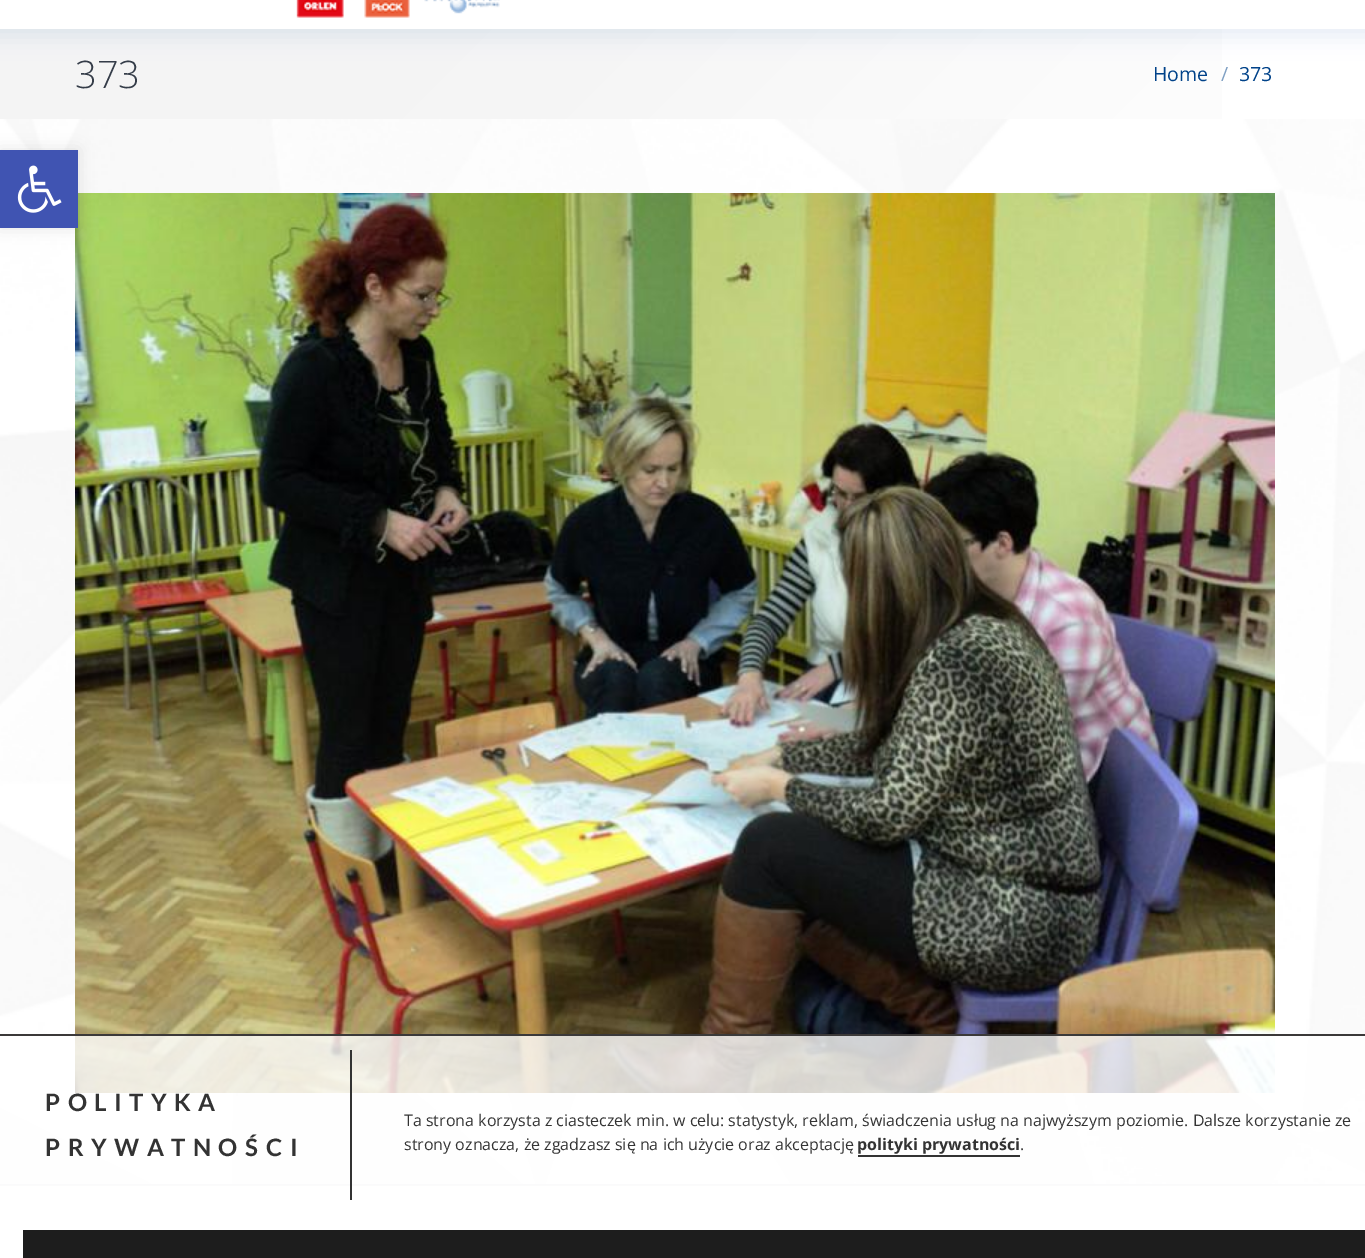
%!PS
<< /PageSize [1365 1258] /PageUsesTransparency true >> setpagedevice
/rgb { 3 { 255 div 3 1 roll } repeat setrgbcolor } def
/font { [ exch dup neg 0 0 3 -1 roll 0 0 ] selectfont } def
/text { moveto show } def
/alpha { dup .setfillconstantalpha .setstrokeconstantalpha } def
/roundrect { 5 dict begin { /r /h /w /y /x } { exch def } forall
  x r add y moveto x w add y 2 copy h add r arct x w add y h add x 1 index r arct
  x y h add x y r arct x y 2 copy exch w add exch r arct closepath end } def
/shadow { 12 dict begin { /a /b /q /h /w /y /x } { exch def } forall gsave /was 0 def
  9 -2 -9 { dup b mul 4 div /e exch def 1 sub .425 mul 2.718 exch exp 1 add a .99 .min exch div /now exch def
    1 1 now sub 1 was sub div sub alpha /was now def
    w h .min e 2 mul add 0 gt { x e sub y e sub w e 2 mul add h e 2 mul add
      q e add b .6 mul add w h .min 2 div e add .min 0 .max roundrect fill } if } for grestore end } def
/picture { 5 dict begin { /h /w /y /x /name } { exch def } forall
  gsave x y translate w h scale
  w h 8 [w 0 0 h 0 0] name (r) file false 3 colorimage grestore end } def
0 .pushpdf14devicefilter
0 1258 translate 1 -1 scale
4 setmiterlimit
255 255 255 rgb
0 0 1365 1258 rectfill
(img_01.rgb) 0 119 1365 1065 picture
gsave 0 29 moveto 1222 0 rlineto 0 90 rlineto -1222 0 rlineto closepath clip newpath
<< /ShadingType 2 /ColorSpace /DeviceRGB /Coords [319 -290 1046 437] /Extend [true true] /Function << /FunctionType 3 /Domain [0 1] /Functions [<< /FunctionType 2 /Domain [0 1] /C0 [0.957 0.957 0.957] /C1 [0.957 0.957 0.957] /N 1 >> << /FunctionType 2 /Domain [0 1] /C0 [0.957 0.957 0.957] /C1 [1 1 1] /N 1 >>] /Bounds [0.3] /Encode [0 1 0 1] >> >> shfill grestore
0 66 137 rgb
-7 -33 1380 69 0 11 0.1 shadow
255 255 255 rgb
0 0 1365 29 rectfill
(img_02.rgb) 296 0 204 18 picture
(img_03.rgb) 75 193 1200 900 picture
230 231 233 rgb
0 1184 1365 2 rectfill
0.13 alpha
255 255 255 rgb
0 1185 1365 1 rectfill
1 alpha
0 0 0 rgb
0 150 78 78 0 7.5 0.1 shadow
64 84 178 rgb
0 150 78 78 rectfill
(img_04.rgb) 17 165 45 48 picture
0.8 alpha
255 255 255 rgb
0 1036 1365 150 rectfill
1 alpha
59 57 57 rgb
0 1034 1365 2 rectfill
51 51 51 rgb
350 1050 2 150 rectfill
858 1155 162 2 rectfill
29 29 29 rgb
23 1230 1342 28 rectfill
/OpenSans-Light 38 font
53 61 73 rgb
(373) 75 88 text
/OpenSans-Regular 19.5 font
0 66 137 rgb
(Home) 1153 81 text
127 160 195 rgb
(/) 1221 81 text
0 66 137 rgb
(373) 1239 81 text
/Lato-Bold 24 font
51 51 51 rgb
45 1111 moveto 7.5 0 (POLITYKA) ashow
45 1156 moveto 7.5 0 (PRYWATNOŚCI) ashow
/OpenSans-Regular 16 font
(Ta strona korzysta z ciasteczek min. w celu: statystyk, reklam, świadczenia usług na najwyższym poziomie. Dalsze korzystanie ze) 404 1126 text
(strony oznacza, że zgadzasz się na ich użycie oraz akceptację) 404 1150 text
/OpenSans-Bold 16 font
(polityki prywatności) 857 1150 text
/OpenSans-Regular 16 font
(.) 1020 1150 text
.poppdf14devicefilter showpage
